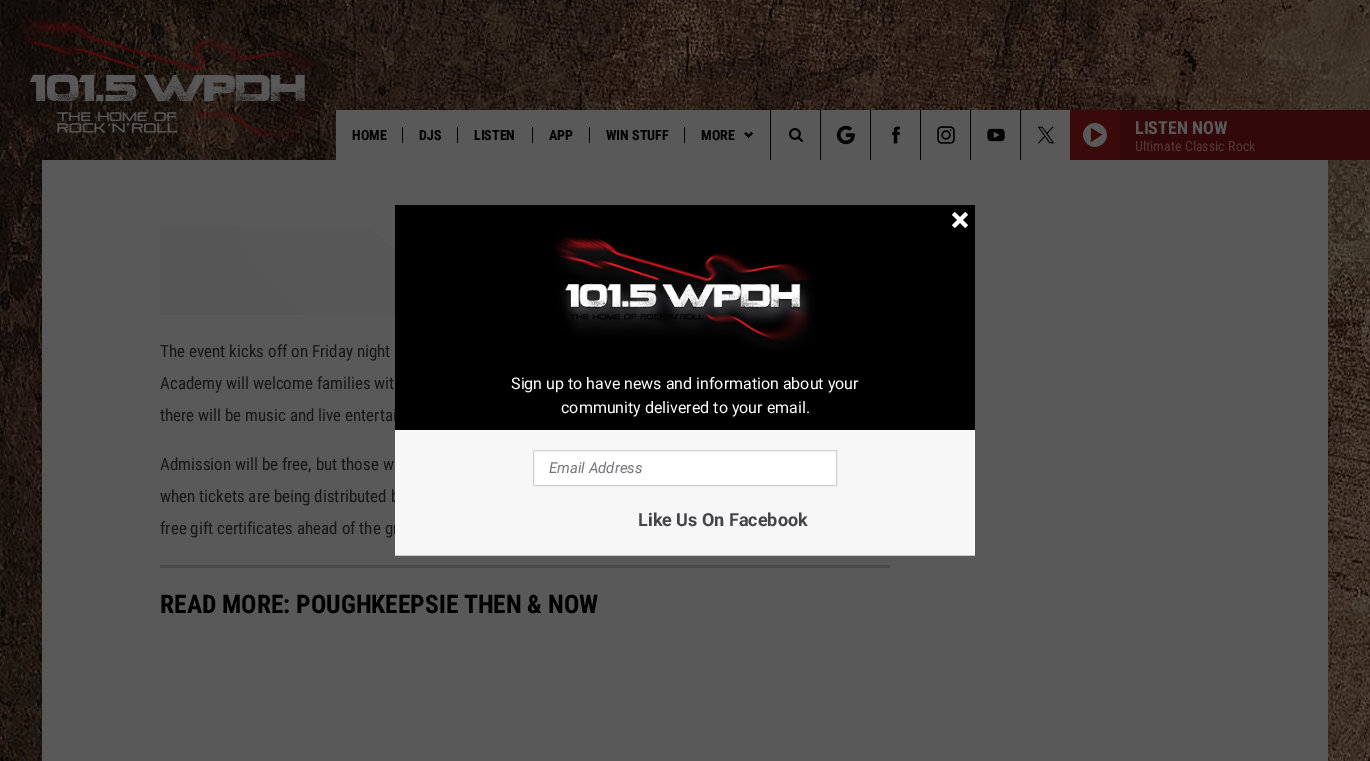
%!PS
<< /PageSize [1370 761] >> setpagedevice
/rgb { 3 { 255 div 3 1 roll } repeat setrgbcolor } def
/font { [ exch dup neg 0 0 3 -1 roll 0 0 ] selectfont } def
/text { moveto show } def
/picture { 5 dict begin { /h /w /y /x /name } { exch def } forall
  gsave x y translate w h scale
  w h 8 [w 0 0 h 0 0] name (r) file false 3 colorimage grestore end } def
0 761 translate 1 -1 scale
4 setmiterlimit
255 255 255 rgb
0 0 1370 761 rectfill
(img_01.rgb) 0 160 1370 601 picture
(img_02.rgb) 0 0 1370 160 picture
(img_03.rgb) 13 17 308 125 picture
89 89 89 rgb
336 110 734 50 rectfill
0 0 0 rgb
402 127 1 16 rectfill
457 127 1 16 rectfill
532 127 1 16 rectfill
589 127 1 16 rectfill
684 127 1 16 rectfill
(img_04.rgb) 744 131 9 7 picture
770 110 1 50 rectfill
(img_05.rgb) 789 128 14 14 picture
820 110 1 50 rectfill
(img_06.rgb) 836 125 19 20 picture
870 110 1 50 rectfill
(img_07.rgb) 892 126 8 18 picture
920 110 1 50 rectfill
(img_08.rgb) 937 126 18 18 picture
970 110 1 50 rectfill
(img_09.rgb) 987 128 18 14 picture
1020 110 1 50 rectfill
(img_10.rgb) 1037 126 18 18 picture
58 10 11 rgb
1070 110 50 50 rectfill
(img_11.rgb) 1083 123 24 24 picture
51 8 10 rgb
1120 110 250 50 rectfill
89 89 89 rgb
42 160 1286 601 rectfill
gsave 160 226 moveto 730 0 rlineto 0 89 rlineto -730 0 rlineto closepath clip newpath 525 72 translate 439 439 scale
<< /ShadingType 3 /ColorSpace /DeviceRGB /Coords [0 0 0 0 0 1] /Extend [true true] /Function << /FunctionType 3 /Domain [0 1] /Functions [<< /FunctionType 2 /Domain [0 1] /C0 [0.349 0.349 0.349] /C1 [0.349 0.349 0.349] /N 1 >> << /FunctionType 2 /Domain [0 1] /C0 [0.349 0.349 0.349] /C1 [0.337 0.337 0.337] /N 1 >>] /Bounds [0.4] /Encode [0 1 0 1] >> >> shfill grestore
73 73 74 rgb
160 565 730 3 rectfill
203 202 204 rgb
395 555 580 1 rectfill
/RobotoCondensed-Bold 14 font
0 0 0 rgb
(HOME) 352 140 text
(DJS) 419 140 text
(LISTEN) 474 140 text
(APP) 549 140 text
(WIN STUFF) 606 140 text
(MORE) 701 140 text
/RobotoCondensed-Bold 18 font
89 89 89 rgb
(LISTEN NOW) 1135 134 text
/RobotoCondensed-Regular 14 font
84 56 57 rgb
(Ultimate Classic Rock) 1135 151 text
/RobotoCondensed-Regular 17 font
24 24 26 rgb
(The event kicks off on Friday night) 160 357 text
(Academy will welcome families wit) 160 389 text
(there will be music and live entertai) 160 421 text
(Admission will be free, but those w) 160 470 text
(when tickets are being distributed b) 160 502 text
(free gift certificates ahead of the gr) 160 534 text
/RobotoCondensed-Bold 25.5 font
0 0 0 rgb
(READ MORE: POUGHKEEPSIE THEN & NOW) 160 613 text
247 247 247 rgb
395 430 580 125 rectfill
0 0 0 rgb
395 205 580 225 rectfill
(img_12.rgb) 952 212 16 16 picture
(img_13.rgb) 555 236 259 114 picture
/Roboto-Regular 16 font
255 255 255 rgb
(Sign up to have news and information about your) 511 389 text
(community delivered to your email.) 561 413 text
533.5 450.5 moveto 303 0 rlineto 0 35 rlineto -303 0 rlineto closepath gsave fill grestore
209 208 210 rgb
stroke
/Roboto-Italic 15 font
119 117 127 rgb
(Email Address) 549 473 text
/Roboto-Bold 18 font
69 68 74 rgb
(Like Us On Facebook) 638 526 text
showpage
